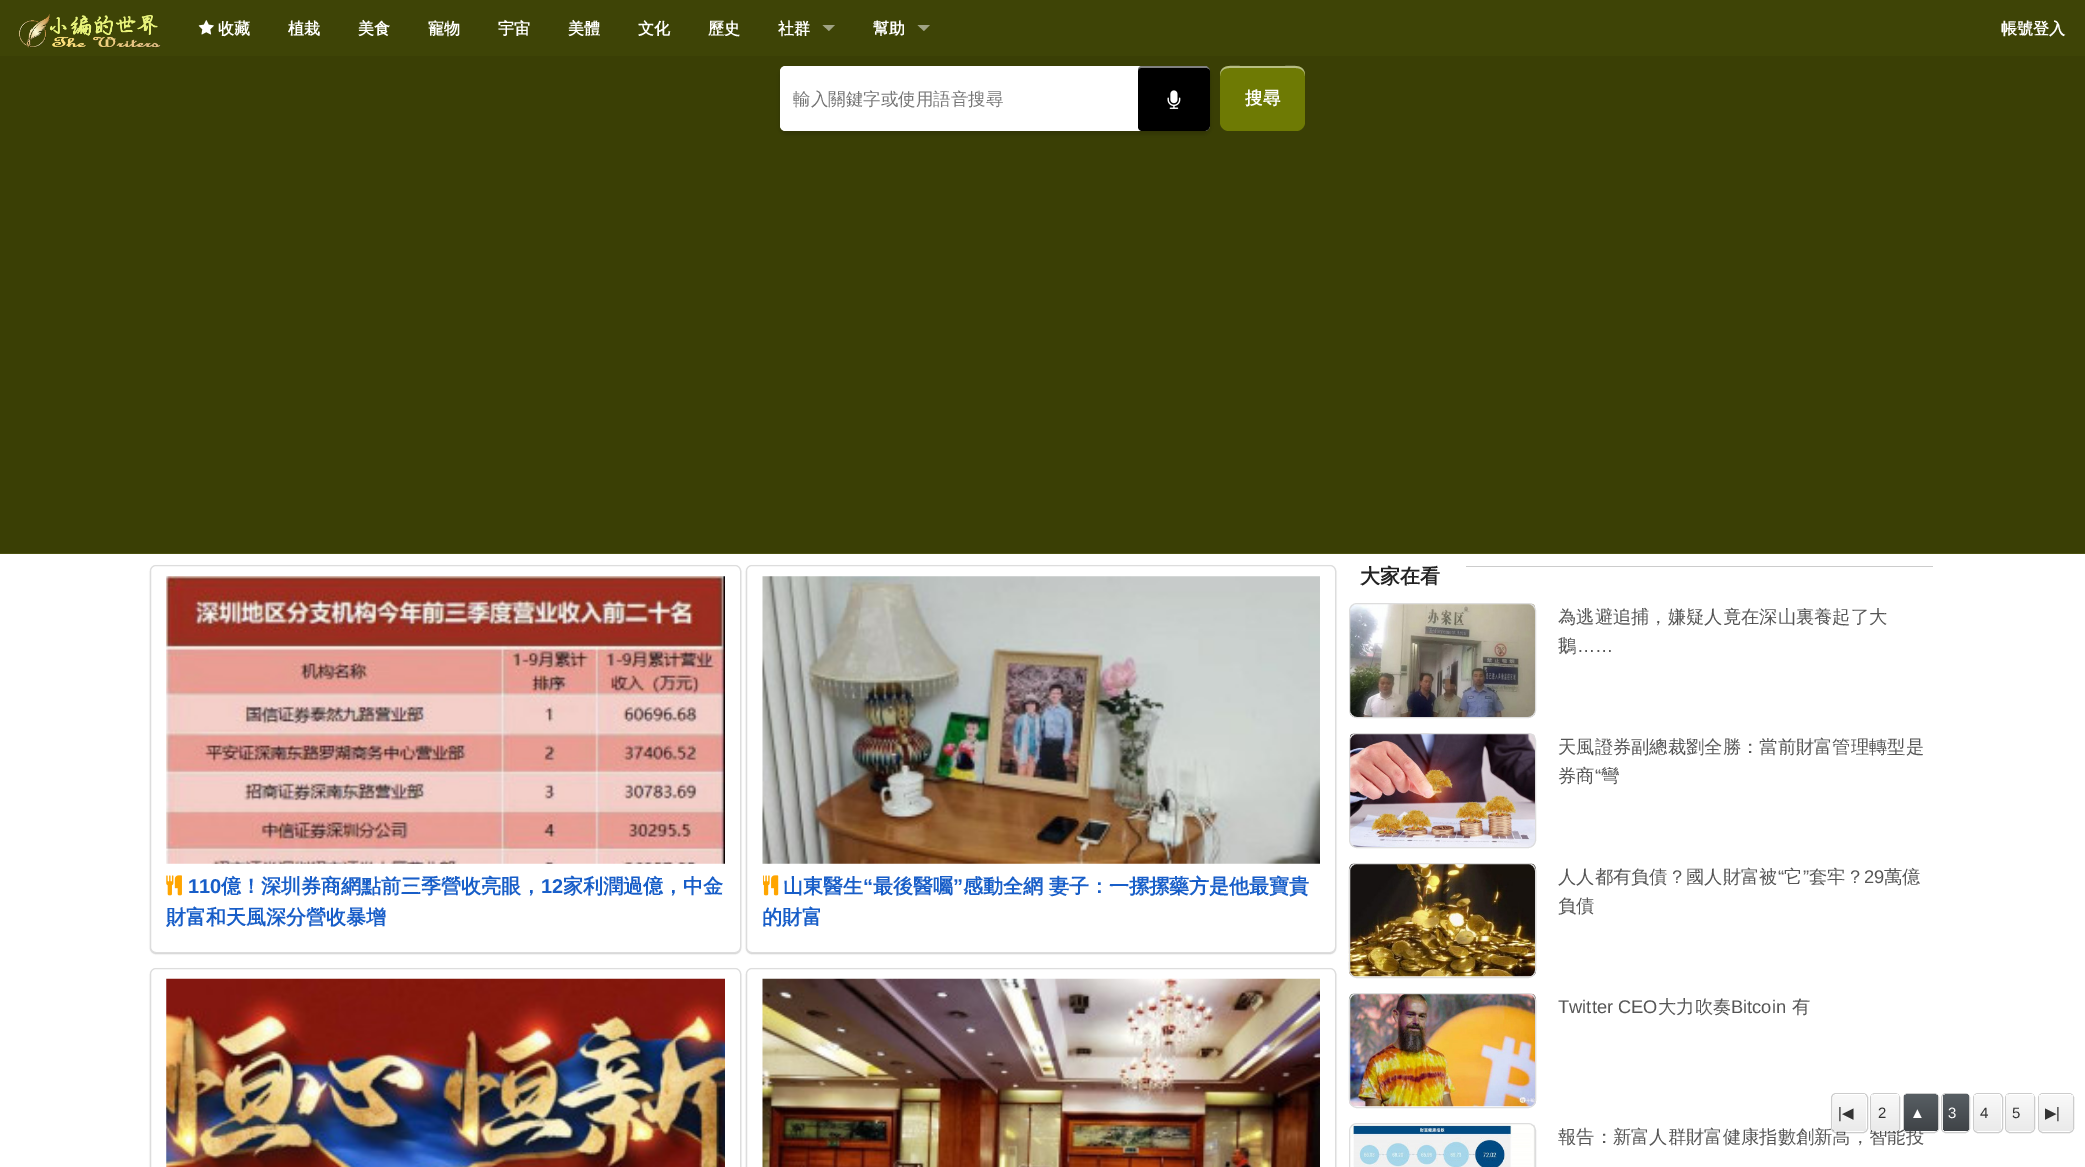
%!PS
<< /PageSize [2085 1167] /PageUsesTransparency true >> setpagedevice
/rgb { 3 { 255 div 3 1 roll } repeat setrgbcolor } def
/font { [ exch dup neg 0 0 3 -1 roll 0 0 ] selectfont } def
/text { moveto show } def
/alpha { dup .setfillconstantalpha .setstrokeconstantalpha } def
/roundrect { 5 dict begin { /r /h /w /y /x } { exch def } forall
  x r add y moveto x w add y 2 copy h add r arct x w add y h add x 1 index r arct
  x y h add x y r arct x y 2 copy exch w add exch r arct closepath end } def
/shadow { 12 dict begin { /a /b /q /h /w /y /x } { exch def } forall gsave /was 0 def
  9 -2 -9 { dup b mul 4 div /e exch def 1 sub .425 mul 2.718 exch exp 1 add a .99 .min exch div /now exch def
    1 1 now sub 1 was sub div sub alpha /was now def
    w h .min e 2 mul add 0 gt { x e sub y e sub w e 2 mul add h e 2 mul add
      q e add b .6 mul add w h .min 2 div e add .min 0 .max roundrect fill } if } for grestore end } def
/picture { 5 dict begin { /h /w /y /x /name } { exch def } forall
  gsave x y translate w h scale
  w h 8 [w 0 0 h 0 0] name (r) file false 3 colorimage grestore end } def
0 .pushpdf14devicefilter
0 1167 translate 1 -1 scale
4 setmiterlimit
255 255 255 rgb
0 0 2085 1167 rectfill
62 68 6 rgb
0 0 2085 56 rectfill
(img_01.rgb) 18 14 143 34 picture
(img_02.rgb) 198 20 16 15 picture
159 162 131 rgb
822.5 25 moveto 12.5 0 rlineto -6 6 rlineto closepath fill
917.5 25 moveto 12.5 0 rlineto -6 6 rlineto closepath fill
58 63 5 rgb
0 56 2085 497 rectfill
74 80 16 rgb
0 553 2085 1 rectfill
0 0 0 rgb
780 69 430 65 6 3 0.2 shadow
255 255 255 rgb
780 66 430 65 6 roundrect fill
786 66 moveto 352 0 rlineto 0 65 rlineto -352 0 rlineto -3.5 0 -6 -2.5 -6 -6 rcurveto 0 -53 rlineto 0 -3.5 2.5 -6 6 -6 rcurveto closepath fill
0 0 0 rgb
1142 66 moveto 62 0 rlineto 3.5 0 6 2.5 6 6 rcurveto 0 53 rlineto 0 3.5 -2.5 6 -6 6 rcurveto -62 0 rlineto -2 0 -4 -2 -4 -4 rcurveto 0 -57 rlineto 0 -2 2 -4 4 -4 rcurveto closepath fill
0.5 alpha
255 255 255 rgb
1141 68 moveto 66 0 rlineto 2 1 rlineto -1 -2 -3 -3 -5 -3 rcurveto -62 0 rlineto -2 0 -4 2 -4 4 rcurveto 0 1 rlineto 0 -2 1 -3 3 -3 rcurveto closepath fill
1 alpha
(img_03.rgb) 1167 90 14 19 picture
110 122 4 rgb
1220 66 85 65 9 roundrect fill
0.5 alpha
255 255 255 rgb
1229 68 moveto 67 0 rlineto 5 0 9 3 9 8 rcurveto 0 -12 -11 -10 -20 -10 rcurveto -45 0 rlineto -9 0 -20 -2 -20 10 rcurveto 0 -5 4 -8 9 -8 rcurveto closepath fill
1 alpha
100 100 100 rgb
150 566 591 388 6 0.5 0.3 shadow
255 255 255 rgb
150.5 565.5 590 387 5.5 roundrect gsave fill grestore
221 221 221 rgb
stroke
(img_04.rgb) 166 576 559 288 picture
(img_05.rgb) 166 875 16 21 picture
100 100 100 rgb
746 566 590 388 6 0.5 0.3 shadow
255 255 255 rgb
746.5 565.5 589 387 5.5 roundrect gsave fill grestore
221 221 221 rgb
stroke
(img_06.rgb) 762 576 558 288 picture
(img_07.rgb) 763 875 16 21 picture
100 100 100 rgb
150 969 591 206 6 0.5 0.3 shadow
255 255 255 rgb
150.5 968.5 590 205 5.5 roundrect gsave fill grestore
221 221 221 rgb
stroke
(img_08.rgb) 166 978 559 189 picture
100 100 100 rgb
746 969 590 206 6 0.5 0.3 shadow
255 255 255 rgb
746.5 968.5 589 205 5.5 roundrect gsave fill grestore
221 221 221 rgb
stroke
(img_09.rgb) 762 978 558 189 picture
204 204 204 rgb
1466 566 467 1 rectfill
(img_10.rgb) 1350 603 185 115 picture
221 221 221 rgb
1349.5 603.5 186 114 7.5 roundrect stroke
(img_11.rgb) 1350 733 185 115 picture
1349.5 733.5 186 114 7.5 roundrect stroke
(img_12.rgb) 1348 863 189 114 picture
1349.5 863.5 186 114 7.5 roundrect stroke
(img_13.rgb) 1348 993 189 114 picture
1349.5 993.5 186 114 7.5 roundrect stroke
(img_14.rgb) 1350 1123 185 44 picture
1349.5 1123.5 186 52 7.5 roundrect stroke
204 204 204 rgb
1941.5 1093.5 28 39 4.5 roundrect stroke
78 84 88 rgb
1943 1094 26 37 4 roundrect fill
gsave
1943 1094 26 37 4 roundrect clip newpath
gsave 1943 1095 moveto 26 0 rlineto 0 32 rlineto 0 2 -2 4 -4 4 rcurveto -18 0 rlineto -2 0 -4 -2 -4 -4 rcurveto closepath clip newpath
<< /ShadingType 2 /ColorSpace /DeviceRGB /Coords [1956 1095 1956 1131] /Extend [true true] /Function << /FunctionType 2 /Domain [0 1] /C0 [0.341 0.369 0.388] /C1 [0.247 0.263 0.278] /N 1 >> >> shfill grestore
grestore
87 94 99 rgb
1945 1094 23 1 rectfill
204 204 204 rgb
1973.5 1093.5 29 39 4.5 roundrect stroke
245 245 245 rgb
1974 1094 27 37 4 roundrect fill
gsave
1974 1094 27 37 4 roundrect clip newpath
gsave 1974 1095 moveto 27 0 rlineto 0 32 rlineto 0 2 -2 4 -4 4 rcurveto -19 0 rlineto -2 0 -4 -2 -4 -4 rcurveto closepath clip newpath
<< /ShadingType 2 /ColorSpace /DeviceRGB /Coords [1988 1095 1988 1131] /Extend [true true] /Function << /FunctionType 2 /Domain [0 1] /C0 [0.976 0.976 0.976] /C1 [0.918 0.918 0.918] /N 1 >> >> shfill grestore
grestore
255 255 255 rgb
1976 1094 24 1 rectfill
204 204 204 rgb
2005.5 1093.5 29 39 4.5 roundrect stroke
245 245 245 rgb
2006 1094 28 37 4 roundrect fill
gsave
2006 1094 28 37 4 roundrect clip newpath
gsave 2006 1094 moveto 3 0 rlineto 0 1 rlineto -3 0 rlineto closepath clip newpath
<< /ShadingType 2 /ColorSpace /DeviceRGB /Coords [2020 1059 2020 1095] /Extend [true true] /Function << /FunctionType 2 /Domain [0 1] /C0 [0.976 0.976 0.976] /C1 [0.918 0.918 0.918] /N 1 >> >> shfill grestore
gsave 2006 1095 moveto 28 0 rlineto 0 32 rlineto 0 2 -2 4 -4 4 rcurveto -20 0 rlineto -2 0 -4 -2 -4 -4 rcurveto closepath clip newpath
<< /ShadingType 2 /ColorSpace /DeviceRGB /Coords [2020 1095 2020 1131] /Extend [true true] /Function << /FunctionType 2 /Domain [0 1] /C0 [0.976 0.976 0.976] /C1 [0.918 0.918 0.918] /N 1 >> >> shfill grestore
grestore
255 255 255 rgb
2009 1094 24 1 rectfill
204 204 204 rgb
2038.5 1093.5 35 39 4.5 roundrect stroke
245 245 245 rgb
2039 1094 34 37 4 roundrect fill
gsave
2039 1094 34 37 4 roundrect clip newpath
gsave 2039 1095 moveto 34 0 rlineto 0 32 rlineto 0 2 -2 4 -4 4 rcurveto -26 0 rlineto -2 0 -4 -2 -4 -4 rcurveto closepath clip newpath
<< /ShadingType 2 /ColorSpace /DeviceRGB /Coords [2056 1095 2056 1131] /Extend [true true] /Function << /FunctionType 2 /Domain [0 1] /C0 [0.976 0.976 0.976] /C1 [0.918 0.918 0.918] /N 1 >> >> shfill grestore
grestore
255 255 255 rgb
2041 1094 30 1 rectfill
/WenQuanYiZenHei-Bold 16 font
(收藏) 218 34 text
(植栽) 288 34 text
(美食) 358 34 text
(寵物) 428 34 text
(宇宙) 498 34 text
(美體) 568 34 text
(文化) 638 34 text
(歷史) 708 34 text
(社群) 778 34 text
(幫助) 873 34 text
(帳號登入) 2001 34 text
/WenQuanYiZenHei-Medium 17.5 font
117 117 117 rgb
(輸入關鍵字或使用語音搜尋) 793 105 text
/WenQuanYiZenHei-Bold 17.5 font
255 255 255 rgb
(搜尋) 1245 104 text
/LiberationSans-Bold 20 font
24 94 200 rgb
(110) 188 893 text
/WenQuanYiZenHei-Bold 20 font
(億！深圳券商網點前三季營收亮眼，) 221 893 text
/LiberationSans-Bold 20 font
(12) 541 893 text
/WenQuanYiZenHei-Bold 20 font
(家利潤過億，中金) 563 893 text
(財富和天風深分營收暴增) 166 924 text
(山東醫生) 783 893 text
/LiberationSans-Bold 20 font
(“) 863 893 text
/WenQuanYiZenHei-Bold 20 font
(最後醫囑) 873 893 text
/LiberationSans-Bold 20 font
(”) 953 893 text
/WenQuanYiZenHei-Bold 20 font
(感動全網 妻子：一摞摞藥方是他最寶貴) 963 893 text
(的財富) 762 924 text
34 34 34 rgb
(大家在看) 1360 583 text
/WenQuanYiZenHei-Medium 18.3 font
85 85 85 rgb
(為逃避追捕，嫌疑人竟在深山裏養起了大) 1558 623 text
(鵝) 1558 652 text
/LiberationSans-Regular 18.3 font
(……) 1577 652 text
/WenQuanYiZenHei-Medium 18.3 font
(天風證券副總裁劉全勝：當前財富管理轉型是) 1558 753 text
(券商) 1558 782 text
/LiberationSans-Regular 18.3 font
(“) 1595 782 text
/WenQuanYiZenHei-Medium 18.3 font
(彎) 1601 782 text
(人人都有負債？國人財富被) 1558 883 text
/LiberationSans-Regular 18.3 font
(“) 1778 883 text
/WenQuanYiZenHei-Medium 18.3 font
(它) 1784 883 text
/LiberationSans-Regular 18.3 font
(”) 1803 883 text
/WenQuanYiZenHei-Medium 18.3 font
(套牢？) 1809 883 text
/LiberationSans-Regular 18.3 font
(29) 1864 883 text
/WenQuanYiZenHei-Medium 18.3 font
(萬億) 1884 883 text
(負債) 1558 912 text
/LiberationSans-Regular 18.3 font
(Twitter CEO) 1558 1013 text
/WenQuanYiZenHei-Medium 18.3 font
(大力吹奏) 1658 1013 text
/LiberationSans-Regular 18.3 font
(Bitcoin) 1731 1013 text
/WenQuanYiZenHei-Medium 18.3 font
(有) 1792 1013 text
(報告：新富人群財富健康指數創新高，智能投) 1558 1143 text
0.2 alpha
0 0 0 rgb
1831.5 1093.5 36 39 4.5 roundrect stroke
1 alpha
245 245 245 rgb
1833 1094 33 37 4 roundrect fill
gsave
1833 1094 33 37 4 roundrect clip newpath
gsave 1833 1095 moveto 33 0 rlineto 0 32 rlineto 0 2 -2 4 -4 4 rcurveto -25 0 rlineto -2 0 -4 -2 -4 -4 rcurveto closepath clip newpath
<< /ShadingType 2 /ColorSpace /DeviceRGB /Coords [1849 1095 1849 1131] /Extend [true true] /Function << /FunctionType 2 /Domain [0 1] /C0 [0.976 0.976 0.976] /C1 [0.918 0.918 0.918] /N 1 >> >> shfill grestore
grestore
255 255 255 rgb
1835 1094 30 1 rectfill
/LiberationSans-Regular 15 font
51 51 51 rgb
(|) 1838 1118 text
/DejaVuSans-Regular 15 font
(◀) 1842 1118 text
0.2 alpha
0 0 0 rgb
1870.5 1093.5 29 39 4.5 roundrect stroke
1 alpha
245 245 245 rgb
1871 1094 28 37 4 roundrect fill
gsave
1871 1094 28 37 4 roundrect clip newpath
gsave 1871 1094 moveto 3 0 rlineto 0 1 rlineto -3 0 rlineto closepath clip newpath
<< /ShadingType 2 /ColorSpace /DeviceRGB /Coords [1885 1059 1885 1095] /Extend [true true] /Function << /FunctionType 2 /Domain [0 1] /C0 [0.976 0.976 0.976] /C1 [0.918 0.918 0.918] /N 1 >> >> shfill grestore
gsave 1871 1095 moveto 28 0 rlineto 0 32 rlineto 0 2 -2 4 -4 4 rcurveto -20 0 rlineto -2 0 -4 -2 -4 -4 rcurveto closepath clip newpath
<< /ShadingType 2 /ColorSpace /DeviceRGB /Coords [1885 1095 1885 1131] /Extend [true true] /Function << /FunctionType 2 /Domain [0 1] /C0 [0.976 0.976 0.976] /C1 [0.918 0.918 0.918] /N 1 >> >> shfill grestore
grestore
255 255 255 rgb
1874 1094 24 1 rectfill
/LiberationSans-Regular 15 font
51 51 51 rgb
(2) 1878 1118 text
0.2 alpha
0 0 0 rgb
1903.5 1093.5 35 39 4.5 roundrect stroke
1 alpha
78 84 88 rgb
1904 1094 34 37 4 roundrect fill
gsave
1904 1094 34 37 4 roundrect clip newpath
gsave 1904 1095 moveto 34 0 rlineto 0 32 rlineto 0 2 -2 4 -4 4 rcurveto -26 0 rlineto -2 0 -4 -2 -4 -4 rcurveto closepath clip newpath
<< /ShadingType 2 /ColorSpace /DeviceRGB /Coords [1921 1095 1921 1131] /Extend [true true] /Function << /FunctionType 2 /Domain [0 1] /C0 [0.341 0.369 0.388] /C1 [0.247 0.263 0.278] /N 1 >> >> shfill grestore
grestore
87 94 99 rgb
1906 1094 30 1 rectfill
255 255 255 rgb
(▲) 1910 1118 text
(3) 1948 1118 text
51 51 51 rgb
(4) 1980 1118 text
(5) 2012 1118 text
/DejaVuSans-Regular 15 font
(▶) 2045 1118 text
/LiberationSans-Regular 15 font
(|) 2056 1118 text
.poppdf14devicefilter showpage
